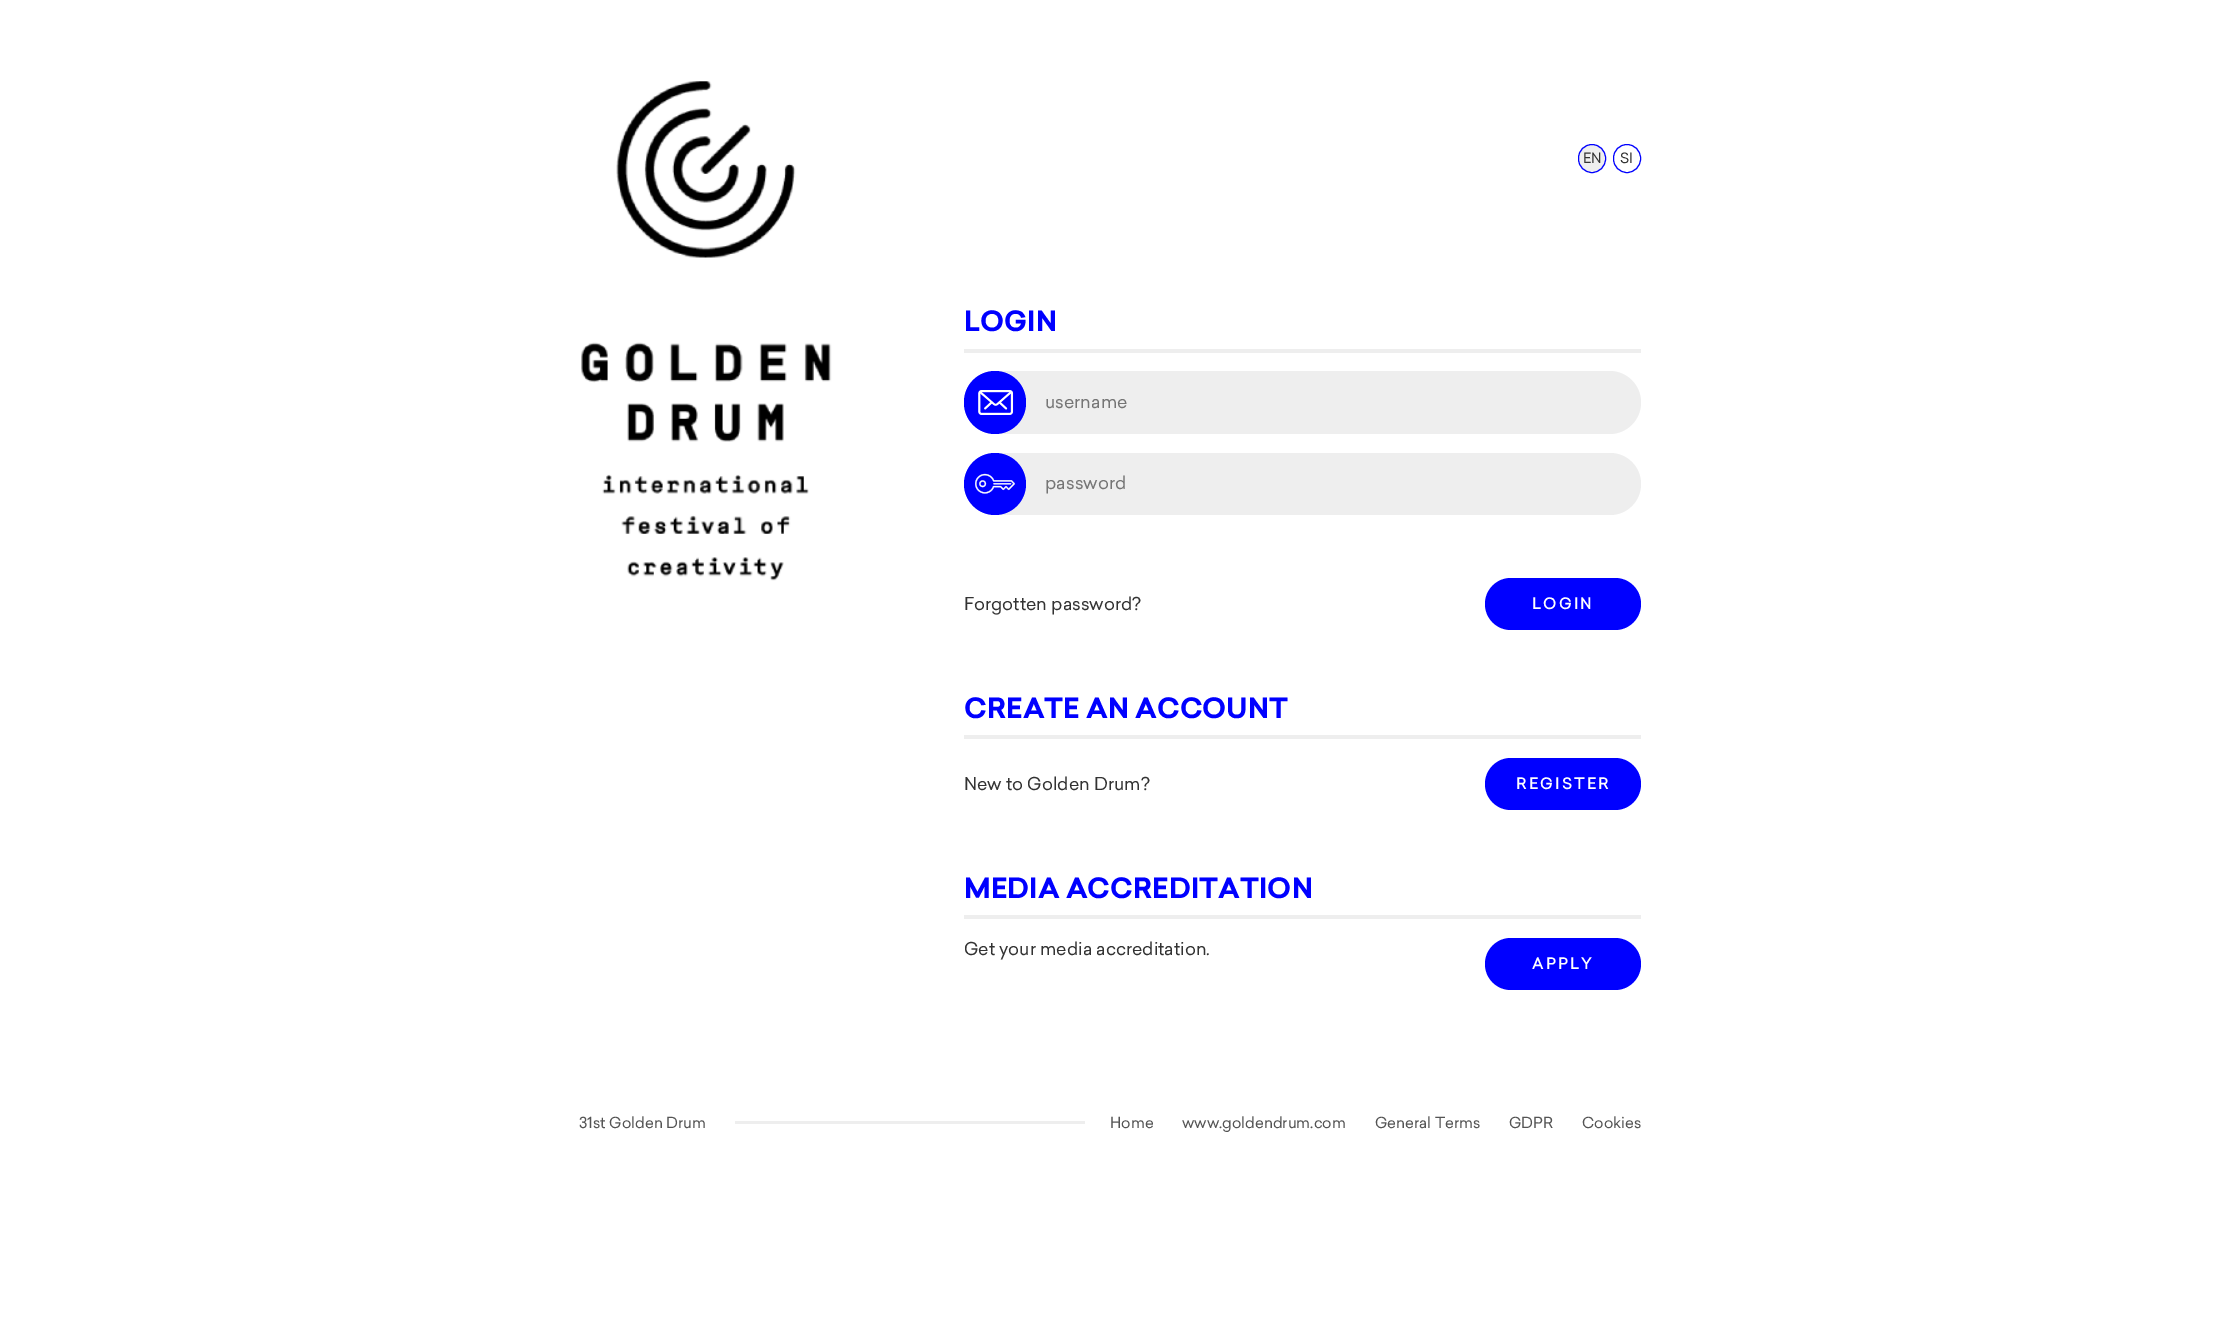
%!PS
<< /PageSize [2219 1342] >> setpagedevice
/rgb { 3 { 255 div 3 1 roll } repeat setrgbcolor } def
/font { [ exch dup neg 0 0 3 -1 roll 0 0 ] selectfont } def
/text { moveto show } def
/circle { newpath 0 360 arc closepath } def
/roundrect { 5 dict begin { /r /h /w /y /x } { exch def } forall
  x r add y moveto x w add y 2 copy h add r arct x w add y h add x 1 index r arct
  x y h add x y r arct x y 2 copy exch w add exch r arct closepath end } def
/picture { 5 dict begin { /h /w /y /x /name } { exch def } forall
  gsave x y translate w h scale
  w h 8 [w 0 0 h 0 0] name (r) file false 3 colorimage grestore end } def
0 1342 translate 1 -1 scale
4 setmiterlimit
255 255 255 rgb
0 0 2219 1342 rectfill
(img_01.rgb) 581 81 251 500 picture
239 239 239 rgb
1578.5 144.5 27 28 13.5 roundrect gsave fill grestore
0 0 255 rgb
stroke
1613.5 144.5 27 28 13.5 roundrect stroke
238 238 238 rgb
964 349 677 4 rectfill
964 371 677 63 31.5 roundrect fill
0 0 255 rgb
964 371 62 63 31 roundrect fill
(img_02.rgb) 978 390 36 25 picture
238 238 238 rgb
964 453 677 62 31 roundrect fill
0 0 255 rgb
995 484 31 circle fill
(img_03.rgb) 975 473 40 21 picture
1485 578 156 52 26 roundrect fill
238 238 238 rgb
964 735 677 4 rectfill
0 0 255 rgb
1485 758 156 52 26 roundrect fill
238 238 238 rgb
964 915 677 4 rectfill
0 0 255 rgb
1485 938 156 52 26 roundrect fill
238 238 238 rgb
735 1121 350 3 rectfill
/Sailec-Regular 14 font
51 51 51 rgb
(EN) 1583 163 text
(SI) 1620 163 text
/Sailec-Bold 27.5 font
0 0 255 rgb
(LOGIN) 964 331 text
/Sailec-Regular 17.5 font
117 117 117 rgb
(username) 1045 408 text
(password) 1045 489 text
51 51 51 rgb
(Forgotten password?) 964 610 text
/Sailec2-Bold 15 font
255 255 255 rgb
1532 609 moveto 2.5 0 (LOGIN) ashow
/Sailec-Bold 27.5 font
0 0 255 rgb
(CREATE AN ACCOUNT) 964 718 text
/Sailec-Regular 17.5 font
51 51 51 rgb
(New to Golden Drum?) 964 790 text
/Sailec2-Bold 15 font
255 255 255 rgb
1516 789 moveto 2.5 0 (REGISTER) ashow
/Sailec-Bold 27.5 font
0 0 255 rgb
(MEDIA ACCREDITATION) 964 898 text
/Sailec-Regular 17.5 font
51 51 51 rgb
(Get your media accreditation.) 964 955 text
/Sailec2-Bold 15 font
255 255 255 rgb
1532 969 moveto 2.5 0 (APPLY) ashow
/Sailec-Regular 15 font
84 84 84 rgb
(31st Golden Drum) 579 1128 text
(Home) 1110 1128 text
(www.goldendrum.com) 1182 1128 text
(General Terms) 1375 1128 text
(GDPR) 1509 1128 text
(Cookies) 1582 1128 text
showpage
